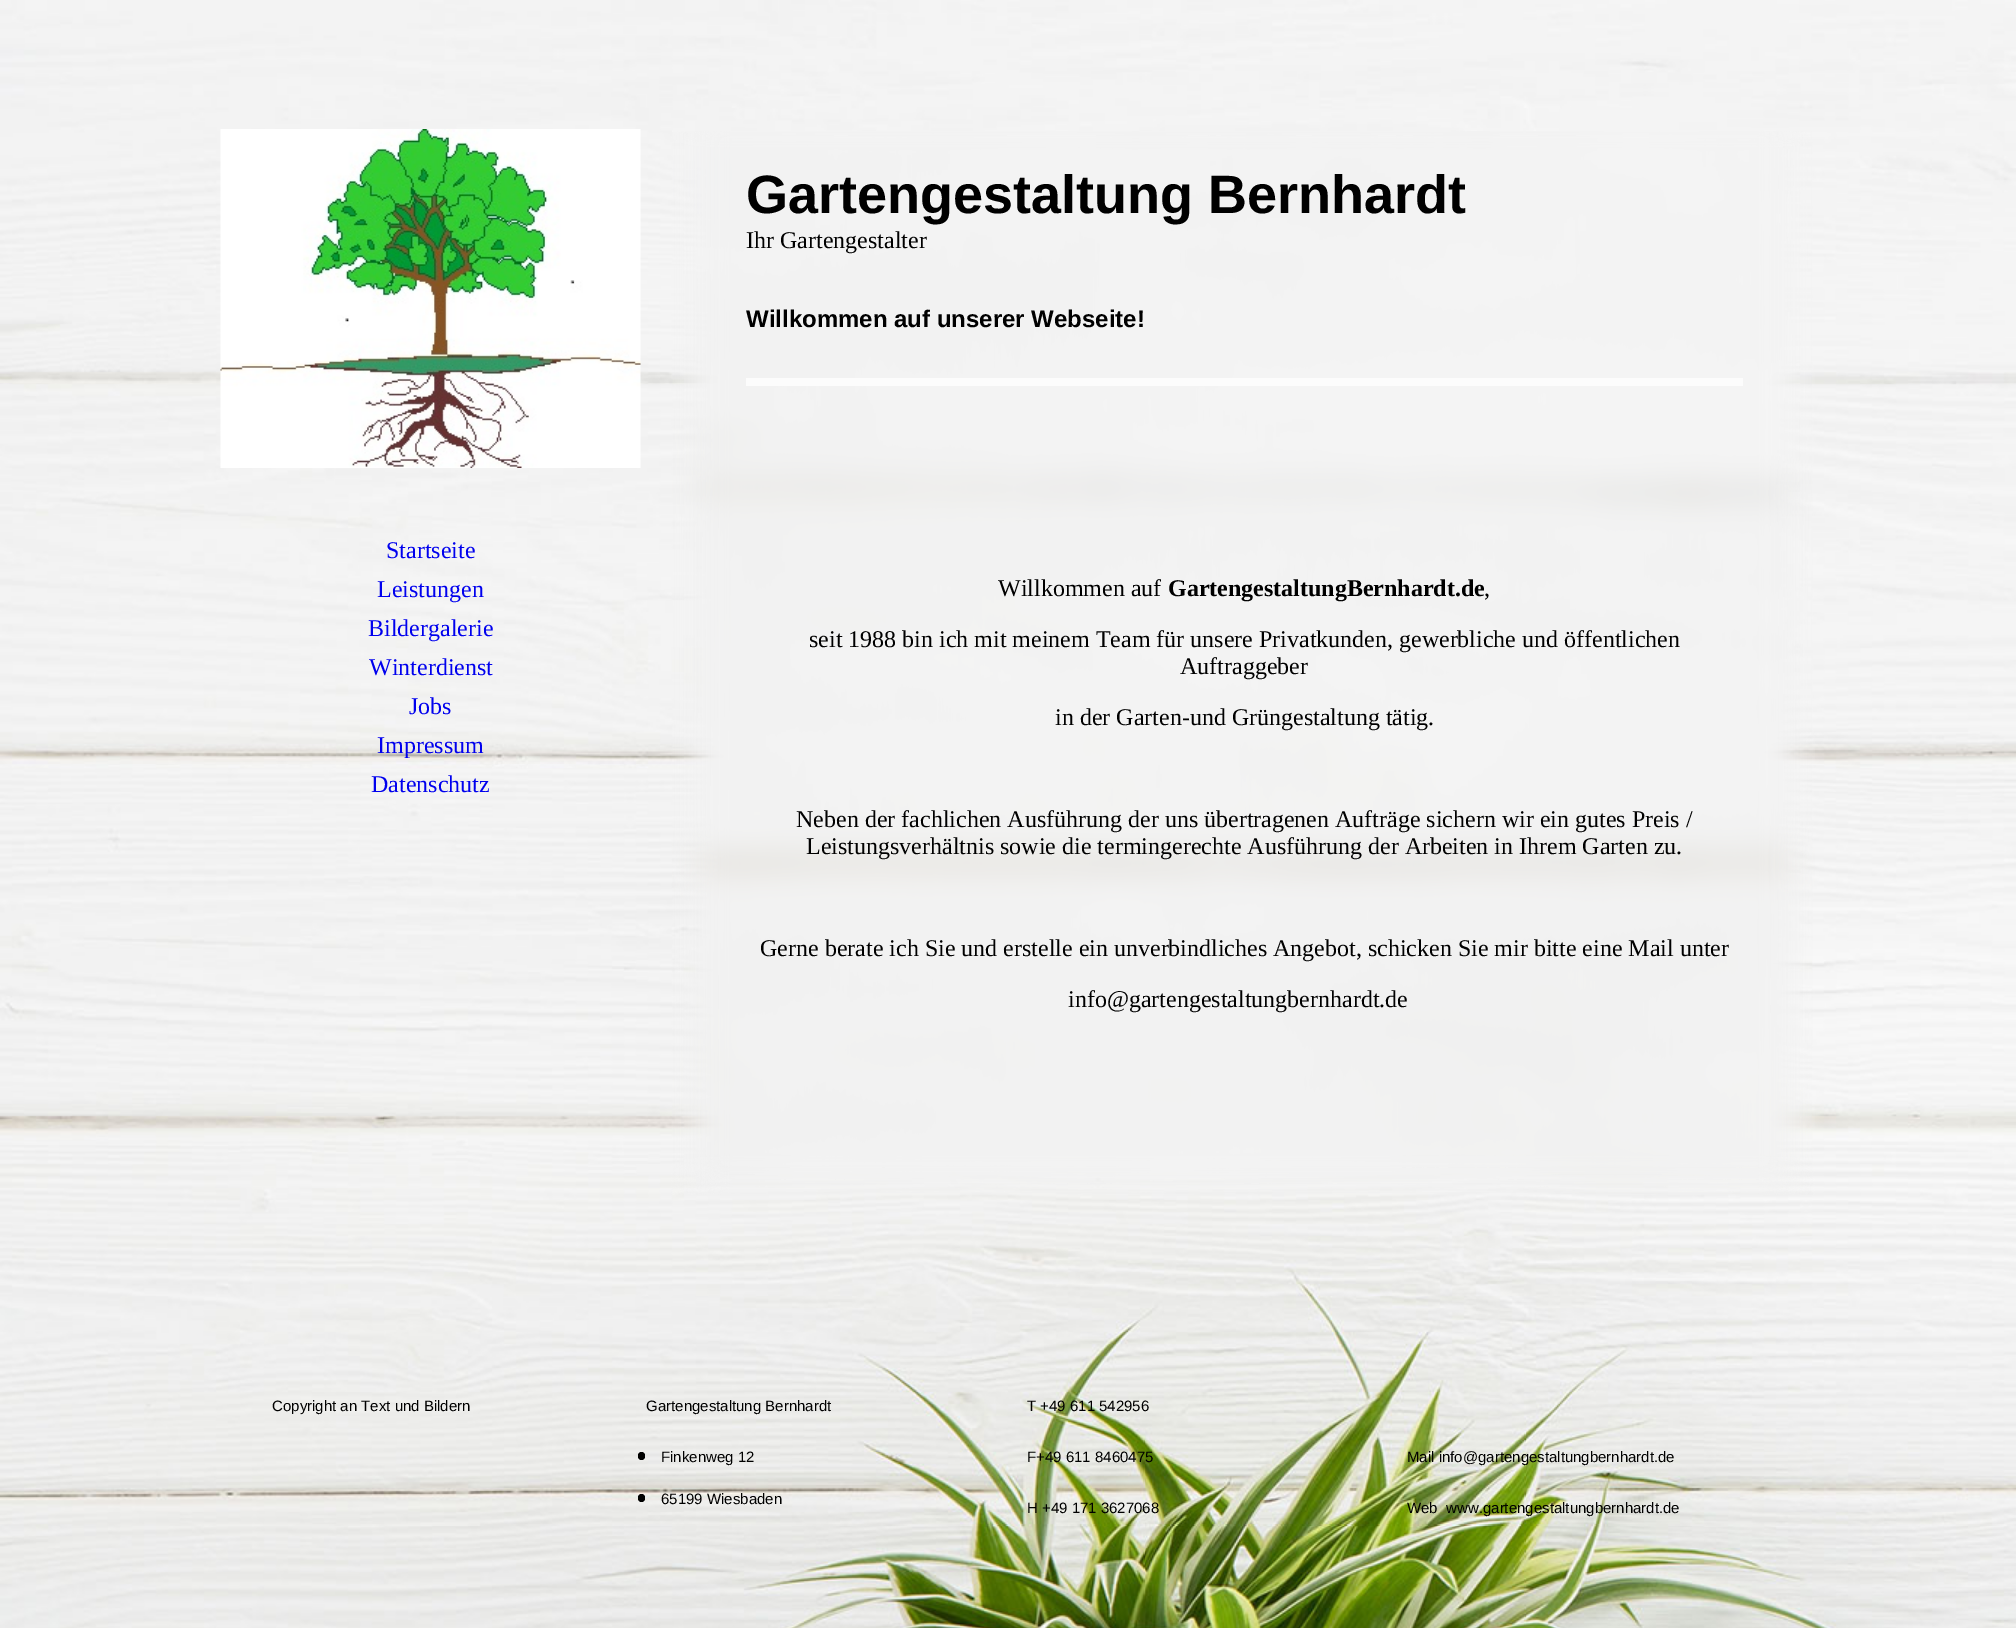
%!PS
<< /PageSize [2016 1628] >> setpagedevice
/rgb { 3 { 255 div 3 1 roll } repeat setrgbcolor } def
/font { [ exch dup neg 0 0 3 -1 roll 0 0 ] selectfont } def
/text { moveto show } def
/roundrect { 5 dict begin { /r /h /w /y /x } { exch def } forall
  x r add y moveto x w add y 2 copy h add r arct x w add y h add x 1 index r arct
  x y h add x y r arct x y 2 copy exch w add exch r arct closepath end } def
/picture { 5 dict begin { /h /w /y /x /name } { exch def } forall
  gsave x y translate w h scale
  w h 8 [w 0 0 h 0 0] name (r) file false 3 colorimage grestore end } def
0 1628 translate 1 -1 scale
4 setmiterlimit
255 255 255 rgb
0 0 2016 1628 rectfill
(img_01.rgb) 0 0 2016 1628 picture
(img_02.rgb) 220 129 421 339 picture
(img_03.rgb) 671 131 1144 1064 picture
252 252 252 rgb
746 378 997 8 rectfill
0 0 0 rgb
638 1452 7 8 3.5 roundrect fill
638 1494 7 8 3.5 roundrect fill
/LiberationSerif-Regular 24 font
0 0 238 rgb
(Startseite) 386 558 text
(Leistungen) 377 597 text
(Bildergalerie) 368 636 text
(Winterdienst) 369 675 text
(Jobs) 409 714 text
(Impressum) 377 753 text
(Datenschutz) 371 792 text
/LiberationSans-Bold 54 font
0 0 0 rgb
(Gartengestaltung Bernhardt) 746 213 text
/LiberationSerif-Regular 24 font
(Ihr Gartengestalter) 746 248 text
/LiberationSans-Bold 24 font
(Willkommen auf unserer Webseite!) 746 327 text
/LiberationSerif-Regular 24 font
(Willkommen auf) 998 596 text
/LiberationSerif-Bold 24 font
(GartengestaltungBernhardt.de) 1168 596 text
/LiberationSerif-Regular 24 font
(,) 1484 596 text
(seit 1988 bin ich mit meinem Team für unsere Privatkunden, gewerbliche und öffentlichen) 809 647 text
(Auftraggeber) 1180 674 text
(in der Garten-und Grüngestaltung tätig.) 1055 725 text
(Neben der fachlichen Ausführung der uns übertragenen Aufträge sichern wir ein gutes Preis /) 796 827 text
(Leistungsverhältnis sowie die termingerechte Ausführung der Arbeiten in Ihrem Garten zu.) 806 854 text
(Gerne berate ich Sie und erstelle ein unverbindliches Angebot, schicken Sie mir bitte eine Mail unter) 760 956 text
(info@gartengestaltungbernhardt.de) 1068 1007 text
/LiberationSans-Regular 15 font
(Copyright an Text und Bildern) 272 1411 text
(Gartengestaltung Bernhardt) 646 1411 text
(Finkenweg 12) 661 1462 text
(65199 Wiesbaden) 661 1504 text
(T +49 611 542956) 1027 1411 text
(F+49 611 8460475) 1027 1462 text
(H +49 171 3627068) 1027 1513 text
(Mail info@gartengestaltungbernhardt.de) 1407 1462 text
(Web  www.gartengestaltungbernhardt.de) 1407 1513 text
showpage
